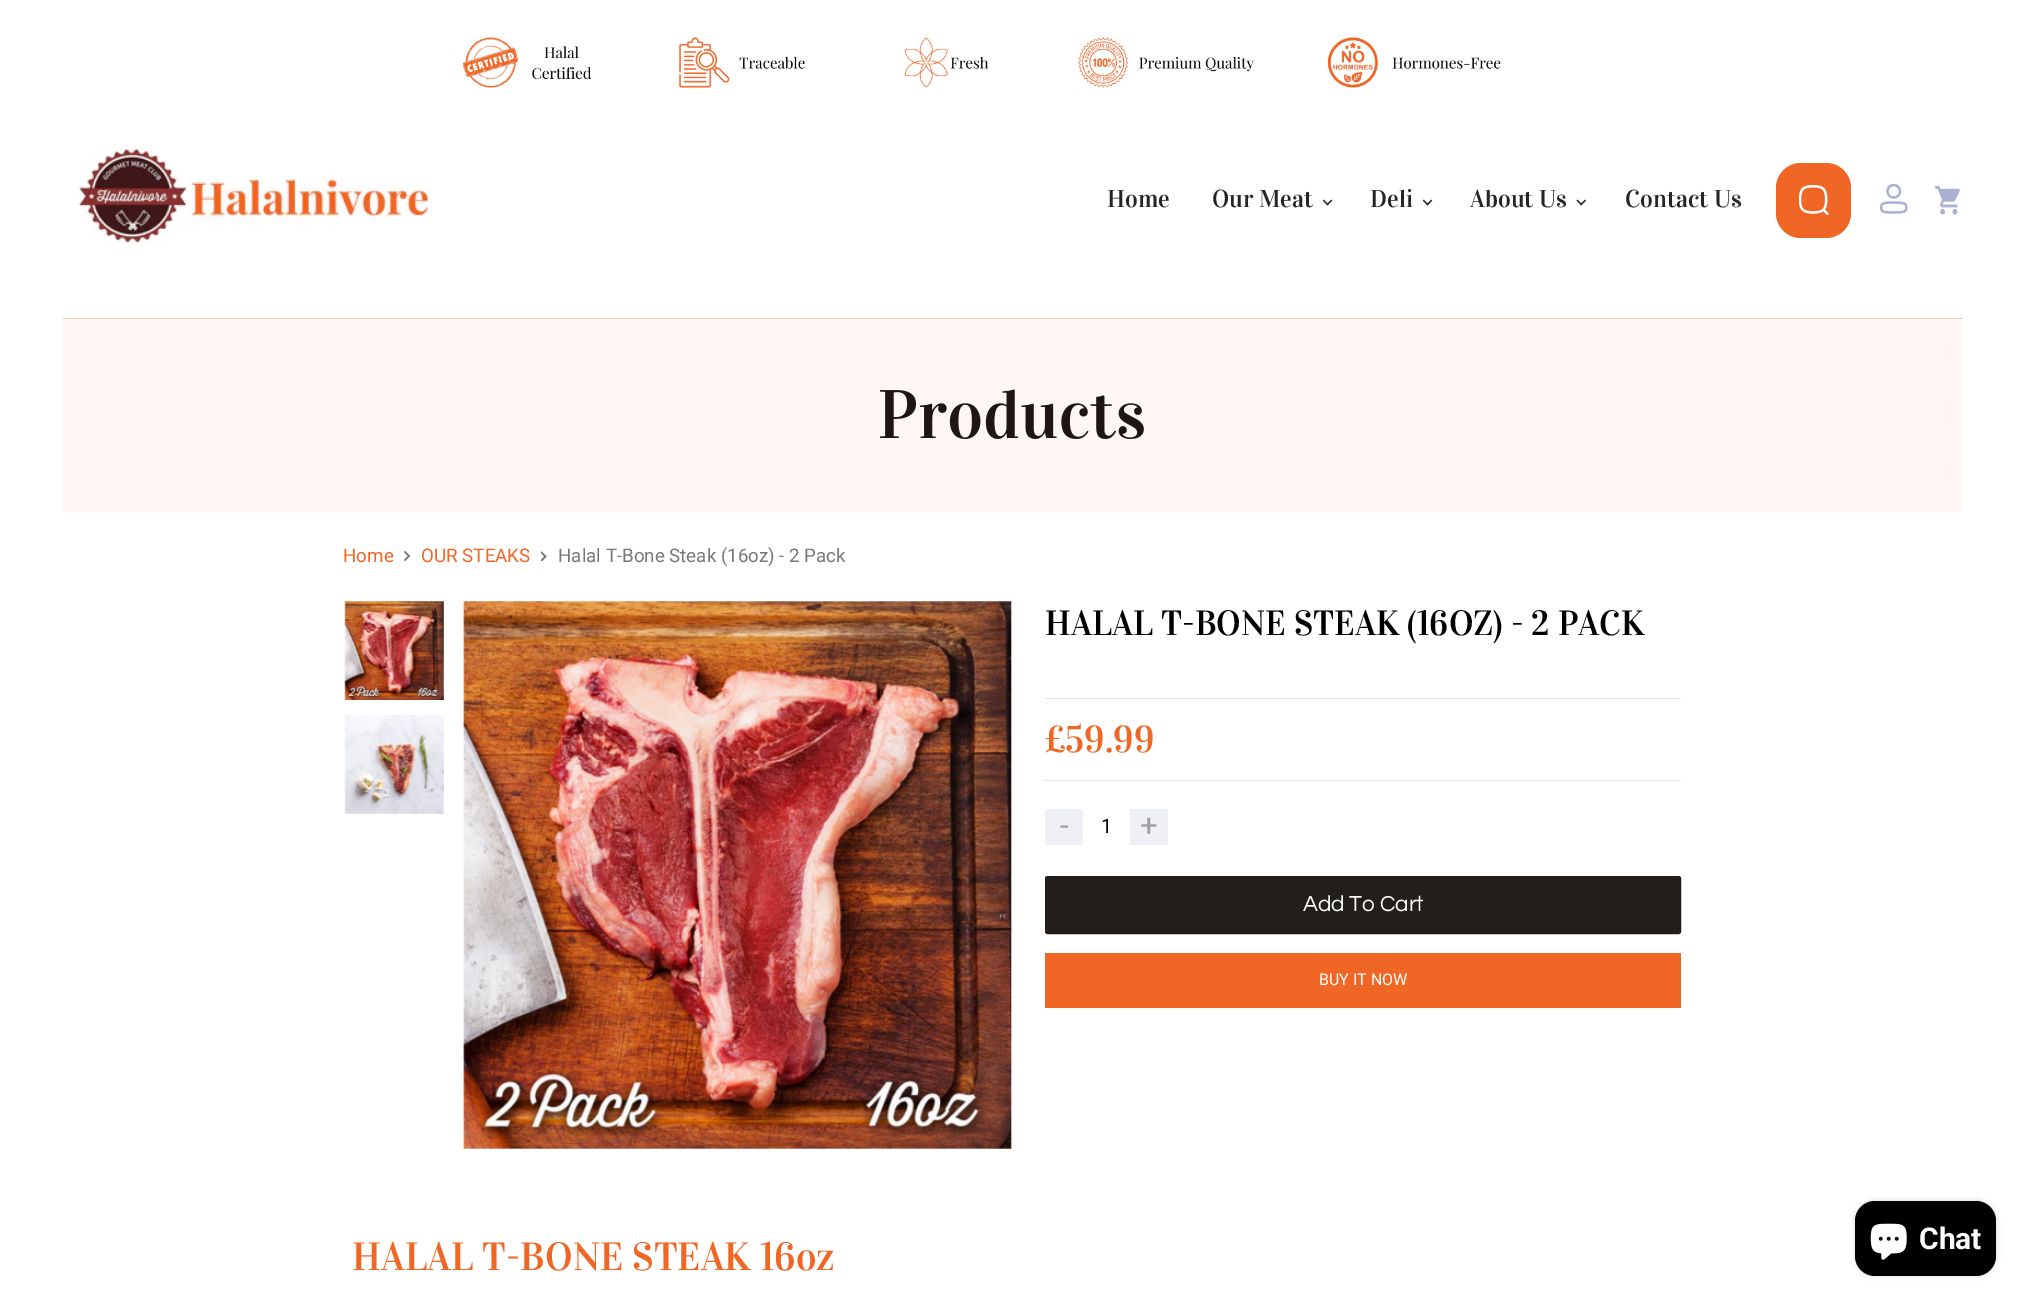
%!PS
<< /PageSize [2023 1302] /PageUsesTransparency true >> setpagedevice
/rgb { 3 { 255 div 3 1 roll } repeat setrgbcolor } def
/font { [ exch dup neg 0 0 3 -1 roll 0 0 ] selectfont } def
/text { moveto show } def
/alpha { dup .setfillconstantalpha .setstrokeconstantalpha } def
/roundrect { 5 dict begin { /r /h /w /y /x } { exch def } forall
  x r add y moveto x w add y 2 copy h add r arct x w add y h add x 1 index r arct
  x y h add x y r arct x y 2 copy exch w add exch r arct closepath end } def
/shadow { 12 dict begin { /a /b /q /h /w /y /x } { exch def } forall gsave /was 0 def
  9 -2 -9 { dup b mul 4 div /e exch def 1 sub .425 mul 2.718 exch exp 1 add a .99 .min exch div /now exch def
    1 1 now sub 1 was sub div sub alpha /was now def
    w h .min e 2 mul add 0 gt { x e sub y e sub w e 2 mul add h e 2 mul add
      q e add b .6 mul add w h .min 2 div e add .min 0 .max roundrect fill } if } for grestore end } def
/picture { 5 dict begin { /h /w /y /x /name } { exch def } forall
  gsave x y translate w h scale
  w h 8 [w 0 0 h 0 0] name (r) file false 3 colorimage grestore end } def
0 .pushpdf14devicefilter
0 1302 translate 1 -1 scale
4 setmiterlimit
255 255 255 rgb
0 0 2023 1302 rectfill
(img_01.rgb) 462 37 1039 51 picture
(img_02.rgb) 77 145 356 100 picture
(img_03.rgb) 1323 199 10 7 picture
(img_03.rgb) 1423 199 10 7 picture
(img_04.rgb) 1576 199 10 7 picture
240 102 36 rgb
1776 163 75 75 25 roundrect fill
(img_05.rgb) 1799 185 30 30 picture
(img_06.rgb) 1880 184 28 30 picture
(img_07.rgb) 1935 185 25 30 picture
225 208 188 rgb
63 318 1900 1 rectfill
gsave
404 561 moveto 0 -10 rlineto 6.5 0 rlineto 0 10 rlineto closepath clip newpath
117 121 119 rgb
1.6 setlinewidth
404.5 560.5 moveto 4.5 -4.5 rlineto -4.5 -4.5 rlineto stroke
grestore
gsave
541 561 moveto 0 -10 rlineto 6.5 0 rlineto 0 10 rlineto closepath clip newpath
117 121 119 rgb
1.6 setlinewidth
541 561 moveto 4.5 -4.5 rlineto -4.5 -4.5 rlineto stroke
grestore
(img_09.rgb) 344 601 100 99 picture
(img_10.rgb) 344 715 100 99 picture
(img_11.rgb) 463 601 549 548 picture
224 224 224 rgb
1045 698 636 1 rectfill
1045 780 636 1 rectfill
239 240 245 rgb
1045 809 38 36 rectfill
1130 809 38 36 rectfill
33 30 28 rgb
1045.5 876.5 635 57 2 roundrect gsave fill grestore
stroke
240 102 36 rgb
1045 953 636 55 rectfill
0 0 0 rgb
1855 1201 141 75 20 3 0.15 shadow
1855 1201 141 75 20 roundrect fill
(img_12.rgb) 1870 1223 37 37 picture
/Vidaloka-Regular 24.5 font
37 37 37 rgb
(Home) 1107 207 text
(Our Meat) 1212 207 text
(Deli) 1370 207 text
(About Us) 1470 207 text
(Contact Us) 1625 207 text
/Vidaloka-Regular 69 font
17 17 17 rgb
(Products) 878 438 text
(img_08.rgb) 63 319 1899 194 picture
/Roboto-Regular 18.75 font
240 102 36 rgb
(Home) 343 562 text
(OUR STEAKS) 421 562 text
117 121 119 rgb
(Halal T-Bone Steak \(16oz\) - 2 Pack) 558 562 text
/Vidaloka-Regular 35 font
0 0 0 rgb
(HALAL T-BONE STEAK \(16OZ\) - 2 PACK) 1045 635 text
/Vidaloka-Regular 37.5 font
240 102 36 rgb
(£59.99) 1045 752 text
/Roboto-Regular 31 font
159 159 159 rgb
(-) 1060 836 text
/Roboto-Regular 20 font
0 0 0 rgb
(1) 1101 833 text
/Roboto-Regular 31 font
159 159 159 rgb
(+) 1140 836 text
/Questrial-Regular 22.5 font
255 255 255 rgb
(Add To Cart) 1303 911 text
/Roboto-Regular 16 font
(BUY IT NOW) 1319 985 text
/Vidaloka-Regular 39.4 font
240 102 36 rgb
(HALAL T-BONE STEAK 16oz) 352 1270 text
/Roboto-Bold 30 font
255 255 255 rgb
(Chat) 1919 1249 text
.poppdf14devicefilter showpage
